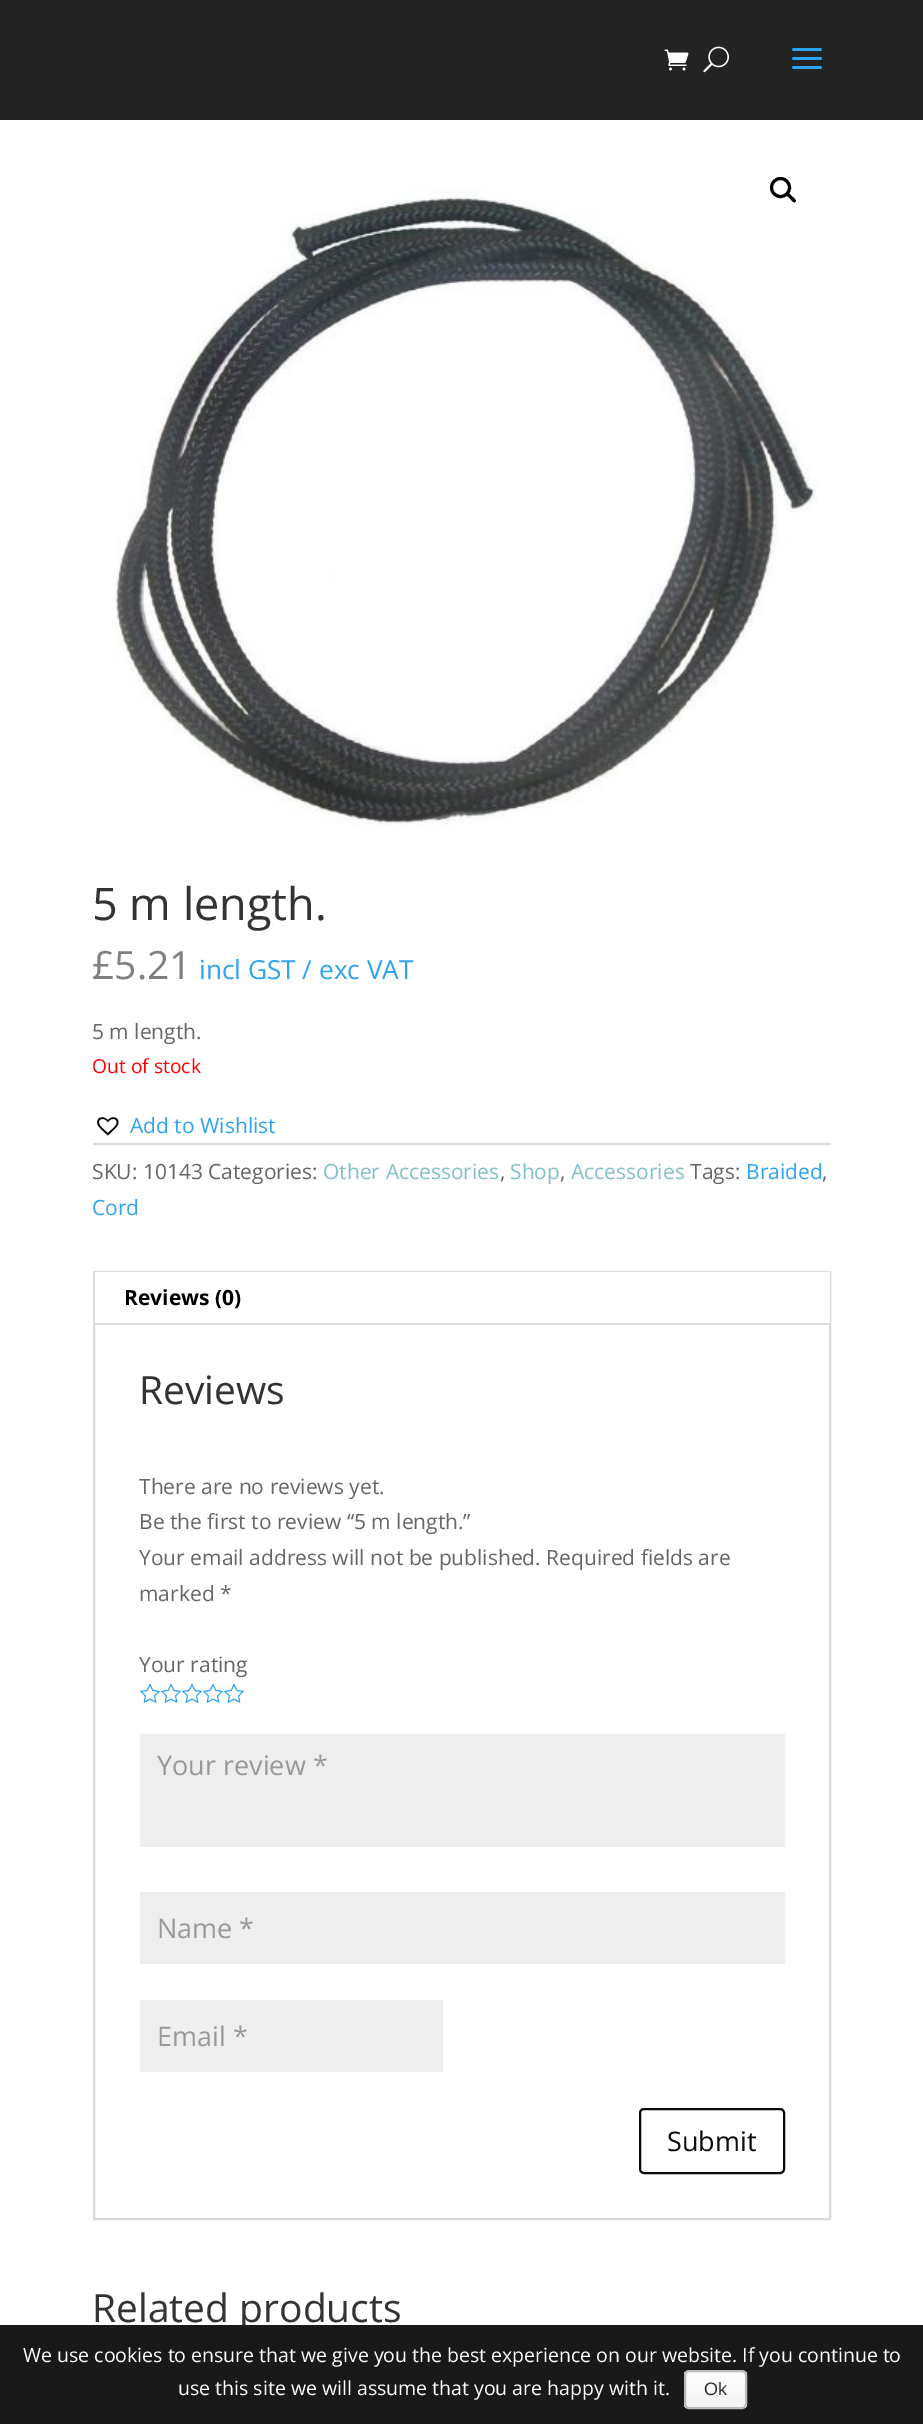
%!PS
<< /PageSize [923 2424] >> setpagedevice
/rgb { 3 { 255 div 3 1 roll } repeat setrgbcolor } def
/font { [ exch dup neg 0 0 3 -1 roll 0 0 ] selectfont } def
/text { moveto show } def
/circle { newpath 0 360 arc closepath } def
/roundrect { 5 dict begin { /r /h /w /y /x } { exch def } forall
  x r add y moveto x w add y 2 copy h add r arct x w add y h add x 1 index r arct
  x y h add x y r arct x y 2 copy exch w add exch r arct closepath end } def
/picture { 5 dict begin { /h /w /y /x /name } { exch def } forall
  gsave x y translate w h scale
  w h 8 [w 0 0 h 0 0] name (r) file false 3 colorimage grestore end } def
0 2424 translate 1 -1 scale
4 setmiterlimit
255 255 255 rgb
0 0 923 2424 rectfill
35 35 35 rgb
0 0 923 120 rectfill
(img_01.rgb) 664 49 25 22 picture
(img_02.rgb) 703 46 26 27 picture
(img_03.rgb) 792 48 30 21 picture
(img_04.rgb) 115 189 703 637 picture
0 0 0 rgb
3 setlinewidth
780.5 187.5 9 circle stroke
787 193.5 moveto 1.5 -2 4 2 5 3 rcurveto 1 1 5 3.5 3.5 5.5 rcurveto -2 1.5 -4.5 -2.5 -5.5 -3.5 rcurveto -1 -1 -5 -3.5 -3 -5 rcurveto closepath fill
(img_05.rgb) 97 1117 22 19 picture
218 218 218 rgb
93 1143 738 2 rectfill
217 217 217 rgb
2 setlinewidth
94 1272 736 947 rectstroke
255 255 255 rgb
95 1272 735 51 rectfill
224 218 223 rgb
95 1323 735 2 rectfill
(img_06.rgb) 139 1683 22 21 picture
(img_07.rgb) 160 1683 22 21 picture
(img_07.rgb) 181 1683 22 21 picture
(img_07.rgb) 202 1683 22 21 picture
(img_07.rgb) 223 1683 22 21 picture
238 238 238 rgb
140 1734 645 113 rectfill
140 1892 645 72 rectfill
140 2000 303 72 rectfill
10 10 10 rgb
640 2109 144 64 4 roundrect stroke
/OpenSans-Regular 45 font
51 51 51 rgb
(5 m length.) 92 920 text
/OpenSans-Regular 39 font
128 128 128 rgb
(£5.21) 92 979 text
/OpenSans-Regular 26.25 font
46 163 242 rgb
(incl GST / exc VAT) 199 979 text
/OpenSans-Regular 21 font
102 102 102 rgb
(5 m length.) 92 1039 text
/OpenSans-Regular 19.25 font
255 0 0 rgb
(Out of stock) 92 1073 text
/OpenSans-Regular 21 font
46 163 242 rgb
(Add to Wishlist) 130 1133 text
102 102 102 rgb
(SKU: 10143 Categories:) 92 1179 text
130 192 199 rgb
(Other Accessories) 323 1179 text
102 102 102 rgb
(,) 500 1179 text
130 192 199 rgb
(Shop) 510 1179 text
102 102 102 rgb
(,) 560 1179 text
130 192 199 rgb
(Accessories) 571 1179 text
102 102 102 rgb
(Tags:) 690 1179 text
46 163 242 rgb
(Braided) 746 1179 text
102 102 102 rgb
(,) 822 1179 text
46 163 242 rgb
(Cord) 92 1215 text
/OpenSans-Bold 21 font
0 0 0 rgb
(Reviews \(0\)) 124 1305 text
/OpenSans-Regular 39 font
51 51 51 rgb
(Reviews) 139 1404 text
/OpenSans-Regular 21 font
102 102 102 rgb
(There are no reviews yet.) 139 1494 text
(Be the first to review “5 m length.”) 139 1529 text
(Your email address will not be published. Required fields are) 139 1565 text
(marked *) 139 1601 text
(Your rating) 139 1672 text
/OpenSans-Regular 27 font
153 153 153 rgb
(Your review *) 157 1775 text
(Name *) 157 1938 text
(Email *) 157 2046 text
10 10 10 rgb
(Submit) 667 2151 text
/OpenSans-Regular 39 font
51 51 51 rgb
(Related products) 92 2322 text
25 25 25 rgb
0 2325 923 99 rectfill
/OpenSans-Regular 19.5 font
255 255 255 rgb
(We use cookies to ensure that we give you the best experience on our website. If you continue to) 23 2362 text
(use this site we will assume that you are happy with it.) 178 2395 text
gsave
684 2370 63 39 5 roundrect clip newpath
gsave 684 2372 moveto 63 0 rlineto 0 36 rlineto -63 0 rlineto closepath clip newpath
<< /ShadingType 2 /ColorSpace /DeviceRGB /Coords [716 2372 716 2408] /Extend [true true] /Function << /FunctionType 2 /Domain [0 1] /C0 [0.996 0.996 0.996] /C1 [0.957 0.957 0.957] /N 1 >> >> shfill grestore
grestore
187 187 187 rgb
685 2371 61 37 4 roundrect stroke
/LiberationSans-Regular 18 font
51 51 51 rgb
(Ok) 704 2395 text
showpage
